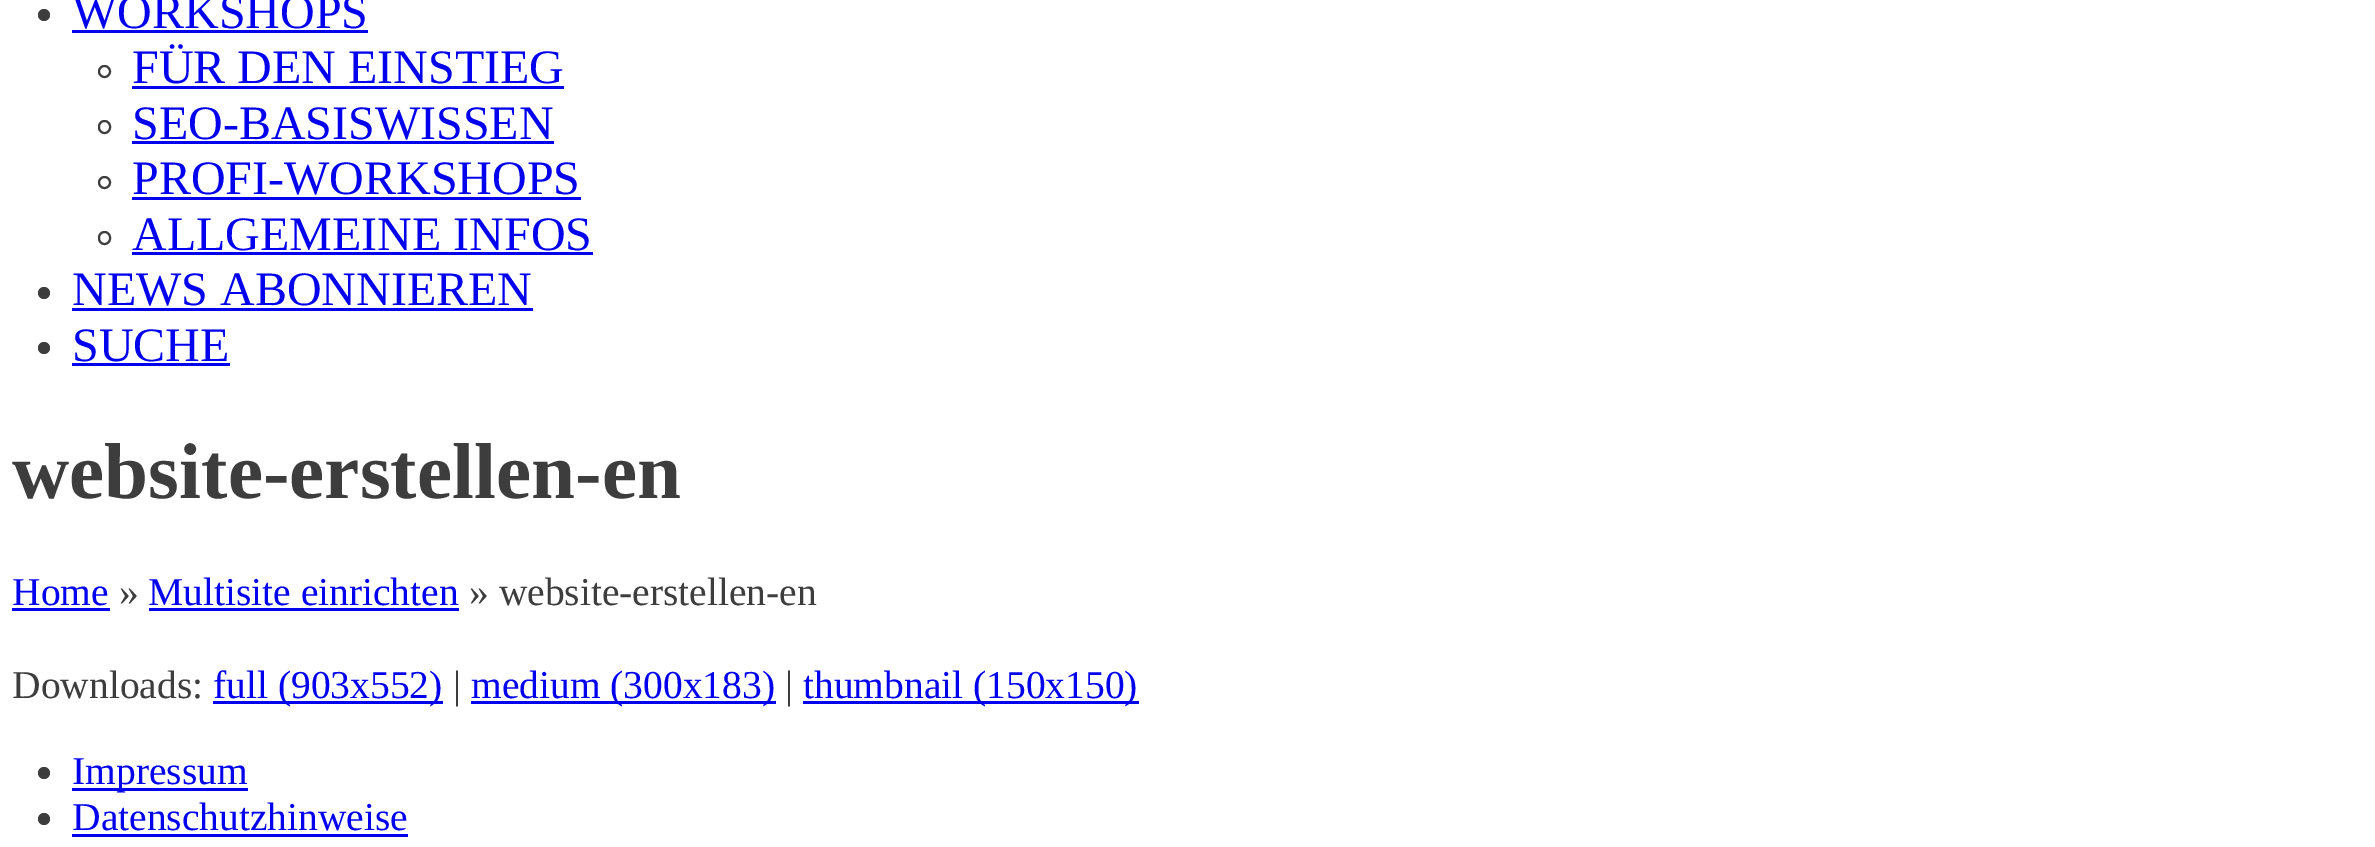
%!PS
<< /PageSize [2375 847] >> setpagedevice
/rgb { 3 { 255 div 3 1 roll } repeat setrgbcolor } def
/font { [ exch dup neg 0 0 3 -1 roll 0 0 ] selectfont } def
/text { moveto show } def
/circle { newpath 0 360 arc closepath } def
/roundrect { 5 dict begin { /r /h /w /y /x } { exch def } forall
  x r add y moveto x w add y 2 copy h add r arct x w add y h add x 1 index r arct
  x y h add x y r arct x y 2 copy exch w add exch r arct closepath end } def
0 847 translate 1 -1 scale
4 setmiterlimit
255 255 255 rgb
0 0 2375 847 rectfill
61 61 61 rgb
44 15 6 circle fill
0 0 238 rgb
72 30 296 3 rectfill
61 61 61 rgb
2 setlinewidth
104.5 71.5 5.5 circle stroke
0 0 238 rgb
132 86 432 3 rectfill
61 61 61 rgb
99 121 11 12 5.5 roundrect stroke
0 0 238 rgb
132 141 422 3 rectfill
61 61 61 rgb
104.5 182.5 5.5 circle stroke
0 0 238 rgb
132 197 449 3 rectfill
61 61 61 rgb
99 232 11 12 5.5 roundrect stroke
0 0 238 rgb
132 252 461 3 rectfill
61 61 61 rgb
44 293 6 circle fill
0 0 238 rgb
72 308 461 3 rectfill
61 61 61 rgb
44 348 6 circle fill
0 0 238 rgb
72 363 158 3 rectfill
12 608 98 3 rectfill
149 608 310 3 rectfill
213 701 230 3 rectfill
471 701 305 3 rectfill
803 701 336 3 rectfill
61 61 61 rgb
44 773 6 circle fill
0 0 238 rgb
72 788 176 3 rectfill
61 61 61 rgb
44 819 6 circle fill
0 0 238 rgb
72 834 336 3 rectfill
/LiberationSerif-Regular 48 font
(WORKSHOPS) 72 28 text
(FÜR DEN EINSTIEG) 132 83 text
(SEO-BASISWISSEN) 132 139 text
(PROFI-WORKSHOPS) 132 194 text
(ALLGEMEINE INFOS) 132 250 text
(NEWS ABONNIEREN) 72 305 text
(SUCHE) 72 361 text
/LiberationSerif-Bold 79.25 font
61 61 61 rgb
(website-erstellen-en) 12 498 text
/LiberationSerif-Regular 39.5 font
0 0 238 rgb
(Home) 12 605 text
61 61 61 rgb
(») 119 605 text
0 0 238 rgb
(Multisite einrichten) 148 605 text
61 61 61 rgb
(» website-erstellen-en) 469 605 text
(Downloads:) 12 698 text
0 0 238 rgb
(full \(903x552\)) 213 698 text
61 61 61 rgb
(|) 453 698 text
0 0 238 rgb
(medium \(300x183\)) 471 698 text
61 61 61 rgb
(|) 785 698 text
0 0 238 rgb
(thumbnail \(150x150\)) 803 698 text
(Impressum) 72 784 text
(Datenschutzhinweise) 72 830 text
showpage
